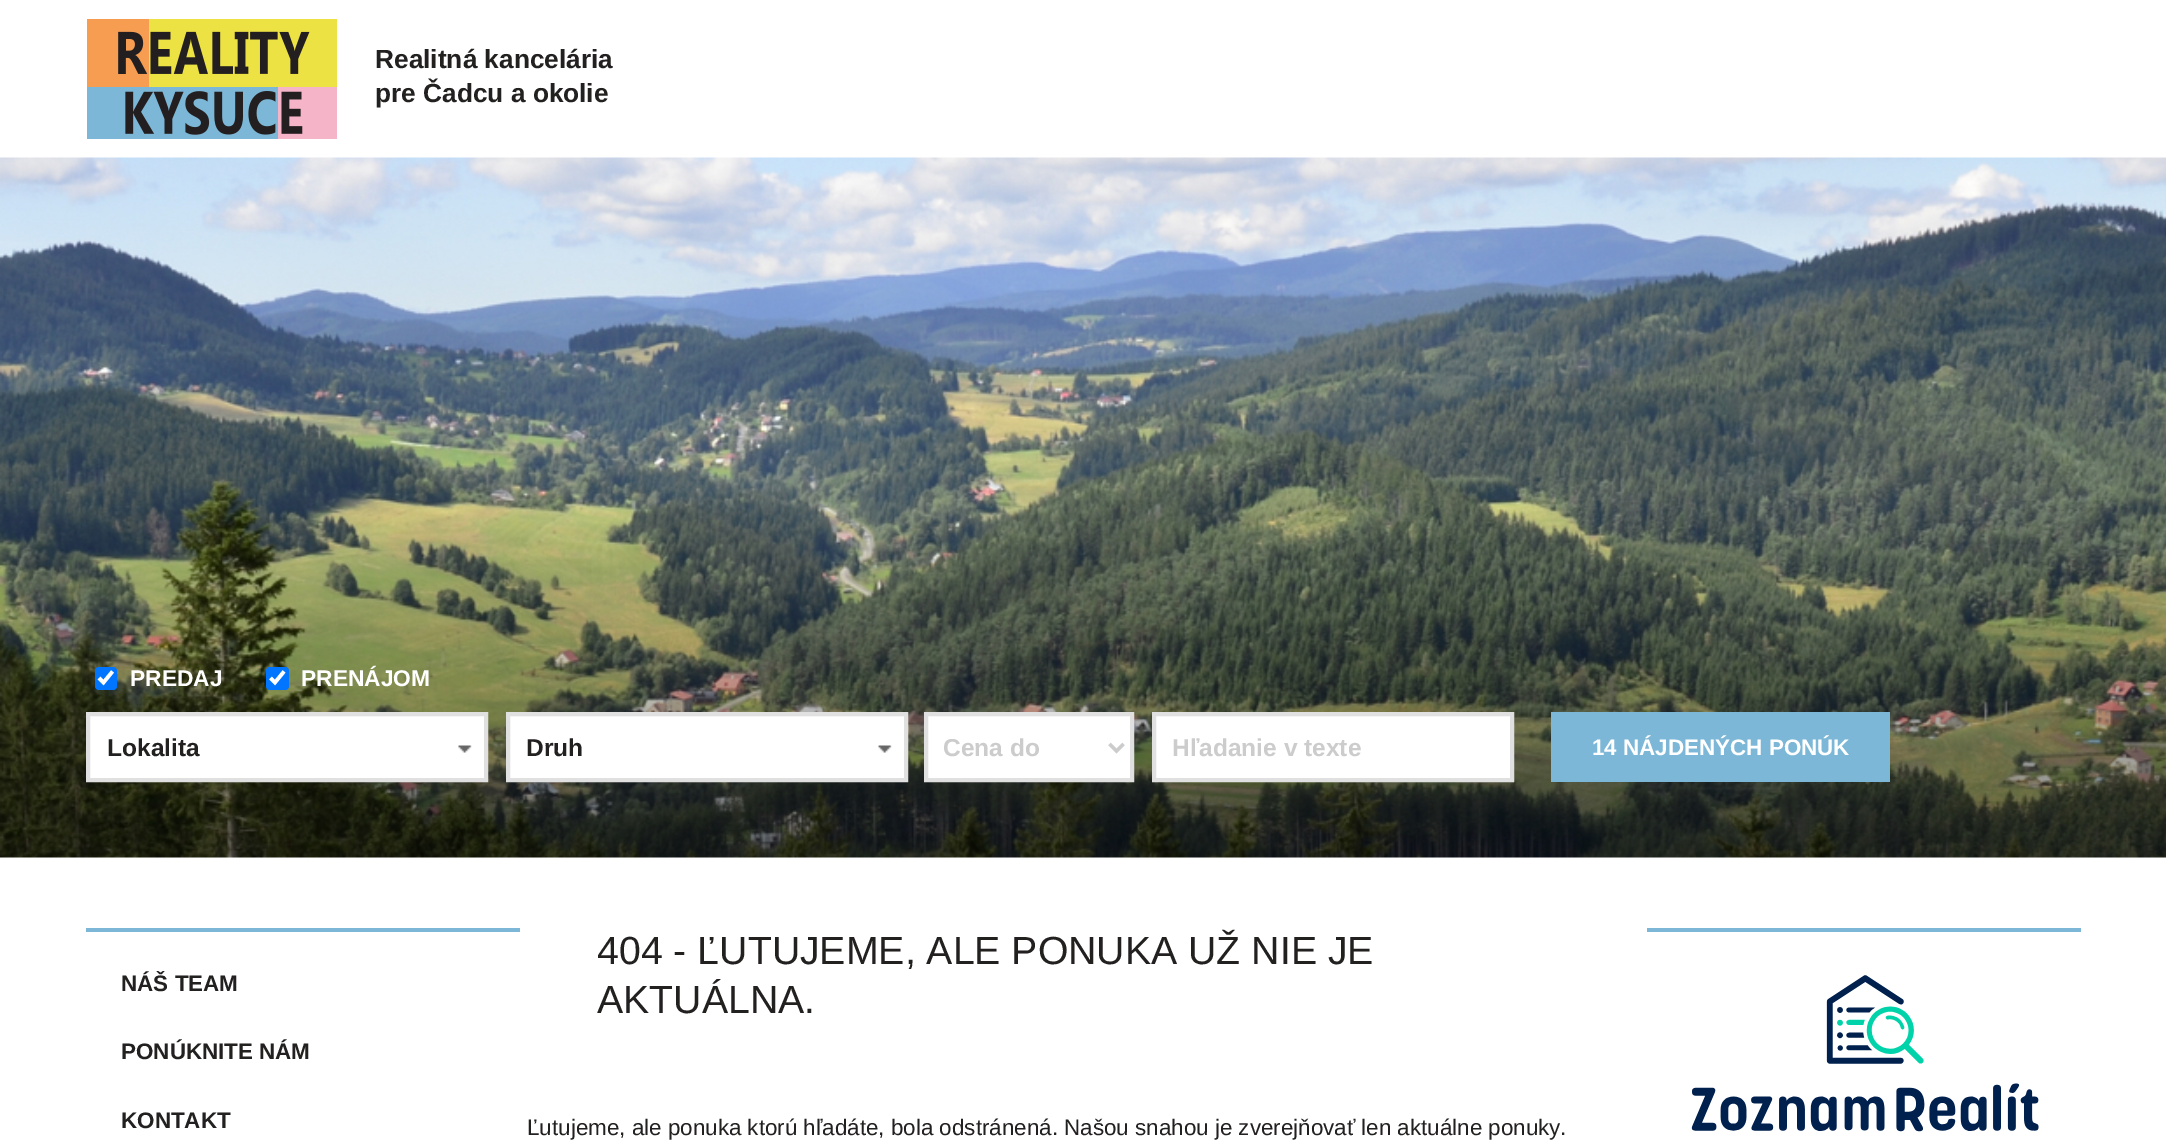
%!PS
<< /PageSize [2166 1147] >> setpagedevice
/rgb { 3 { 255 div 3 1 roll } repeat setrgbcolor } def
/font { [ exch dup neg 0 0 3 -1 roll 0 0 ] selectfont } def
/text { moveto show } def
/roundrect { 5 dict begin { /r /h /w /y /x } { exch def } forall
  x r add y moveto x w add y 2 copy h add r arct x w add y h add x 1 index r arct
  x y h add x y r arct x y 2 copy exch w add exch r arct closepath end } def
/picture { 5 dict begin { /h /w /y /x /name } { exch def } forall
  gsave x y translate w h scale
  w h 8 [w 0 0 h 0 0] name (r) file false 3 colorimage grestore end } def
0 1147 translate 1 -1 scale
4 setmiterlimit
255 255 255 rgb
0 0 2166 1147 rectfill
(img_01.rgb) 0 157 2166 701 picture
(img_02.rgb) 87 19 250 120 picture
0 117 255 rgb
95 667 22 23 4 roundrect fill
255 255 255 rgb
3.6 setlinewidth
99 678 moveto 4.5 4.5 rlineto 9 -11 rlineto stroke
0 117 255 rgb
266 667 23 23 4 roundrect fill
255 255 255 rgb
270.5 678 moveto 4.5 4.5 rlineto 9 -11 rlineto stroke
88 714 moveto 398 0 rlineto 0 66 rlineto -398 0 rlineto closepath gsave fill grestore
224 224 224 rgb
4 setlinewidth
stroke
(img_03.rgb) 458 745 14 8 picture
255 255 255 rgb
508 714 moveto 398 0 rlineto 0 66 rlineto -398 0 rlineto closepath gsave fill grestore
224 224 224 rgb
stroke
(img_04.rgb) 878 745 14 8 picture
255 255 255 rgb
926 714 moveto 206 0 rlineto 0 66 rlineto -206 0 rlineto closepath gsave fill grestore
224 224 224 rgb
stroke
204 204 204 rgb
3.5 setlinewidth
1109.5 744 moveto 7 7 rlineto 7 -7 rlineto stroke
255 255 255 rgb
1154 714 moveto 358 0 rlineto 0 66 rlineto -358 0 rlineto closepath gsave fill grestore
224 224 224 rgb
4 setlinewidth
stroke
125 183 215 rgb
1551 712 339 70 rectfill
86 928 434 4 rectfill
1647 928 434 4 rectfill
(img_05.rgb) 1691 975 348 157 picture
/Arimo-Bold 26.25 font
35 32 32 rgb
(Realitná kancelária) 375 68 text
(pre Čadcu a okolie) 375 102 text
/Arimo-Bold 22.75 font
255 255 255 rgb
(PREDAJ) 130 686 text
(PRENÁJOM) 301 686 text
/Arimo-Bold 24.5 font
35 32 32 rgb
(Lokalita) 107 756 text
(Druh) 526 756 text
204 204 204 rgb
(Cena do) 943 756 text
(Hľadanie v texte) 1172 756 text
/Arimo-Bold 22.4 font
255 255 255 rgb
(14 NÁJDENÝCH PONÚK) 1592 755 text
35 32 32 rgb
(NÁŠ TEAM) 121 991 text
(PONÚKNITE NÁM) 121 1059 text
(KONTAKT) 121 1128 text
/Arimo-Regular 39.25 font
(404 - ĽUTUJEME, ALE PONUKA UŽ NIE JE) 597 964 text
(AKTUÁLNA.) 597 1013 text
/Arimo-Regular 22.4 font
(Ľutujeme, ale ponuka ktorú hľadáte, bola odstránená. Našou snahou je zverejňovať len aktuálne ponuky.) 527 1135 text
showpage
